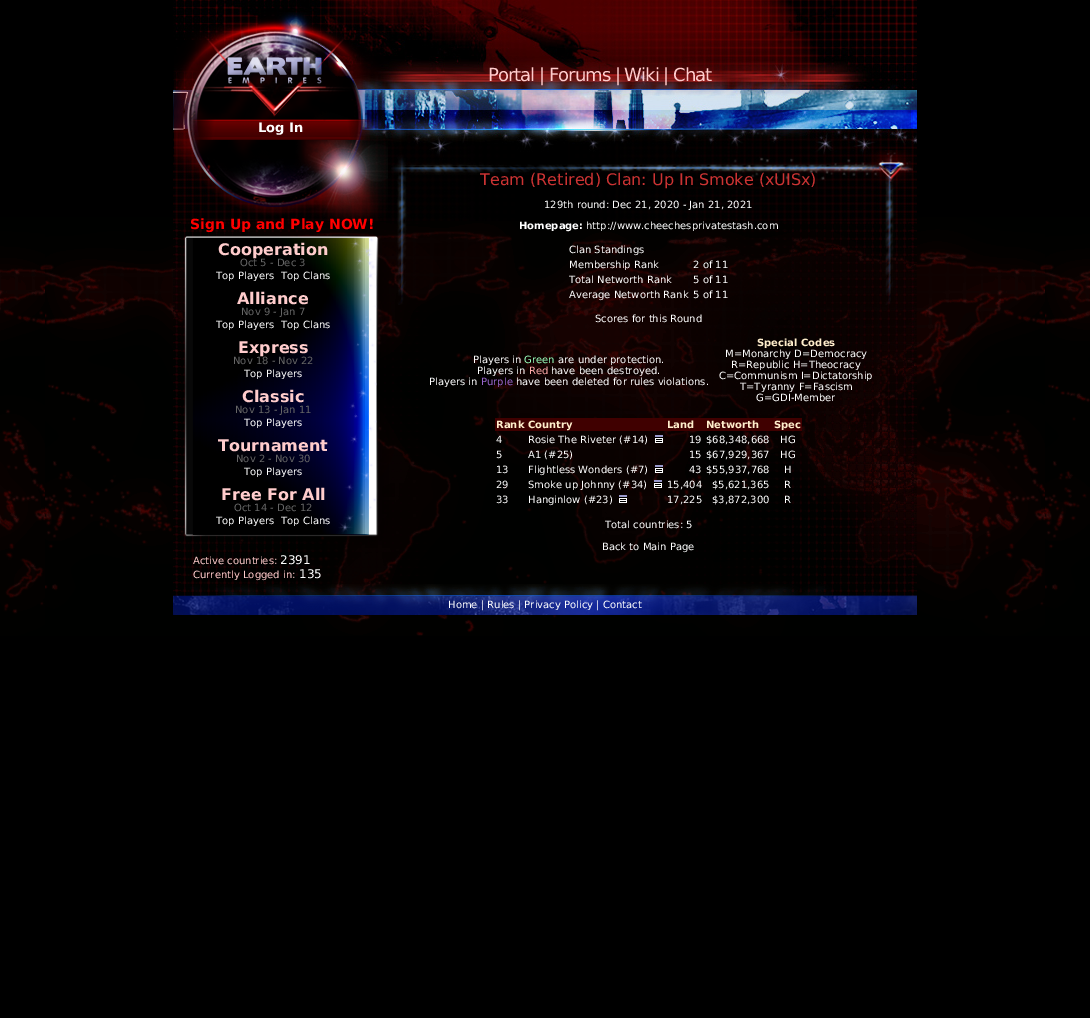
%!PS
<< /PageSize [1090 1018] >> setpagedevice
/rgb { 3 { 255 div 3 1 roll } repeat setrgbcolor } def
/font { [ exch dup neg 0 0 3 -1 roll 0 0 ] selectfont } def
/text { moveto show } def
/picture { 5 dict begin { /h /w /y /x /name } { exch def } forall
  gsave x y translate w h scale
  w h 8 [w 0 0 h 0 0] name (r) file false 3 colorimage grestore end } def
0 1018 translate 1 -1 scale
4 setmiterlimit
0 0 0 rgb
0 0 1090 1018 rectfill
(img_01.rgb) 0 217 1090 419 picture
(img_02.rgb) 173 221 744 394 picture
(img_03.rgb) 173 0 744 221 picture
(img_04.rgb) 174 12 214 209 picture
(img_05.rgb) 189 119 183 21 picture
(img_06.rgb) 178 234 211 311 picture
(img_07.rgb) 391 150 522 155 picture
64 0 0 rgb
495 418 307 13 rectfill
(img_08.rgb) 655 435 8 8 picture
(img_08.rgb) 655 465 8 8 picture
(img_08.rgb) 654 480 8 8 picture
(img_08.rgb) 619 495 8 8 picture
(img_09.rgb) 173 584 744 31 picture
/DejaVuSans-Regular 18 font
255 204 204 rgb
488 81 moveto -1 0 (Portal | Forums | Wiki | Chat) ashow
/DejaVuSans-Bold 13 font
255 255 255 rgb
(Log In) 258 132 text
/DejaVuSans-Bold 14 font
255 0 0 rgb
(Sign Up and Play NOW!) 190 229 text
/DejaVuSans-Bold 16 font
255 204 204 rgb
(Cooperation) 218 255 text
/DejaVuSans-Regular 10 font
102 102 102 rgb
(Oct 5 - Dec 3) 240 266 text
255 255 255 rgb
(Top Players) 216 279 text
(Top Clans) 281 279 text
/DejaVuSans-Bold 16 font
255 204 204 rgb
(Alliance) 237 304 text
/DejaVuSans-Regular 10 font
102 102 102 rgb
(Nov 9 - Jan 7) 241 315 text
255 255 255 rgb
(Top Players) 216 328 text
(Top Clans) 281 328 text
/DejaVuSans-Bold 16 font
255 204 204 rgb
(Express) 238 353 text
/DejaVuSans-Regular 10 font
102 102 102 rgb
(Nov 18 - Nov 22) 233 364 text
255 255 255 rgb
(Top Players) 244 377 text
/DejaVuSans-Bold 16 font
255 204 204 rgb
(Classic) 242 402 text
/DejaVuSans-Regular 10 font
102 102 102 rgb
(Nov 13 - Jan 11) 235 413 text
255 255 255 rgb
(Top Players) 244 426 text
/DejaVuSans-Bold 16 font
255 204 204 rgb
(Tournament) 218 451 text
/DejaVuSans-Regular 10 font
102 102 102 rgb
(Nov 2 - Nov 30) 236 462 text
255 255 255 rgb
(Top Players) 244 475 text
/DejaVuSans-Bold 16 font
255 204 204 rgb
(Free For All) 221 500 text
/DejaVuSans-Regular 10 font
102 102 102 rgb
(Oct 14 - Dec 12) 234 511 text
255 255 255 rgb
(Top Players) 216 524 text
(Top Clans) 281 524 text
255 204 204 rgb
(Active countries:) 193 564 text
/DejaVuSans-Regular 12 font
255 255 255 rgb
(2391) 280 564 text
/DejaVuSans-Regular 10 font
255 204 204 rgb
(Currently Logged in:) 193 578 text
/DejaVuSans-Regular 12 font
255 255 255 rgb
(135) 299 578 text
/DejaVuSans-Regular 16 font
204 51 51 rgb
(Team \(Retired\) Clan: Up In Smoke \(xUISx\)) 480 185 text
/DejaVuSans-Regular 10 font
255 255 255 rgb
(129th round: Dec 21, 2020 - Jan 21, 2021) 544 208 text
/DejaVuSans-Bold 10 font
(Homepage:) 519 229 text
/DejaVuSans-Regular 10 font
(http://www.cheechesprivatestash.com) 586 229 text
(Clan Standings) 569 253 text
(Membership Rank) 569 268 text
(2 of 11) 693 268 text
(Total Networth Rank) 569 283 text
(5 of 11) 693 283 text
(Average Networth Rank) 569 298 text
(5 of 11) 693 298 text
(Scores for this Round) 595 322 text
(Players in) 473 363 text
153 255 187 rgb
(Green) 524 363 text
255 255 255 rgb
(are under protection.) 558 363 text
(Players in) 477 374 text
255 170 170 rgb
(Red) 529 374 text
255 255 255 rgb
(have been destroyed.) 551 374 text
(Players in) 429 385 text
153 102 204 rgb
(Purple) 481 385 text
255 255 255 rgb
(have been deleted for rules violations.) 516 385 text
/DejaVuSans-Bold 10 font
255 238 204 rgb
(Special Codes) 757 346 text
/DejaVuSans-Regular 10 font
255 255 255 rgb
(M=Monarchy D=Democracy) 725 357 text
(R=Republic H=Theocracy) 731 368 text
(C=Communism I=Dictatorship) 719 379 text
(T=Tyranny F=Fascism) 740 390 text
(G=GDI-Member) 756 401 text
/DejaVuSans-Bold 10 font
255 238 204 rgb
(Rank) 496 428 text
(Country) 528 428 text
(Land) 667 428 text
(Networth) 706 428 text
(Spec) 774 428 text
/DejaVuSans-Regular 10 font
255 255 255 rgb
(4) 496 443 text
(Rosie The Riveter \(#14\)) 528 443 text
(19) 689 443 text
($68,348,668) 706 443 text
(HG) 780 443 text
(5) 496 458 text
(A1 \(#25\)) 528 458 text
(15) 689 458 text
($67,929,367) 706 458 text
(HG) 780 458 text
(13) 496 473 text
(Flightless Wonders \(#7\)) 528 473 text
(43) 689 473 text
($55,937,768) 706 473 text
(H) 784 473 text
(29) 496 488 text
(Smoke up Johnny \(#34\)) 528 488 text
(15,404) 667 488 text
($5,621,365) 712 488 text
(R) 784 488 text
(33) 496 503 text
(Hanginlow \(#23\)) 528 503 text
(17,225) 667 503 text
($3,872,300) 712 503 text
(R) 784 503 text
(Total countries: 5) 605 528 text
(Back to Main Page) 602 550 text
(Home | Rules | Privacy Policy | Contact) 448 608 text
showpage
